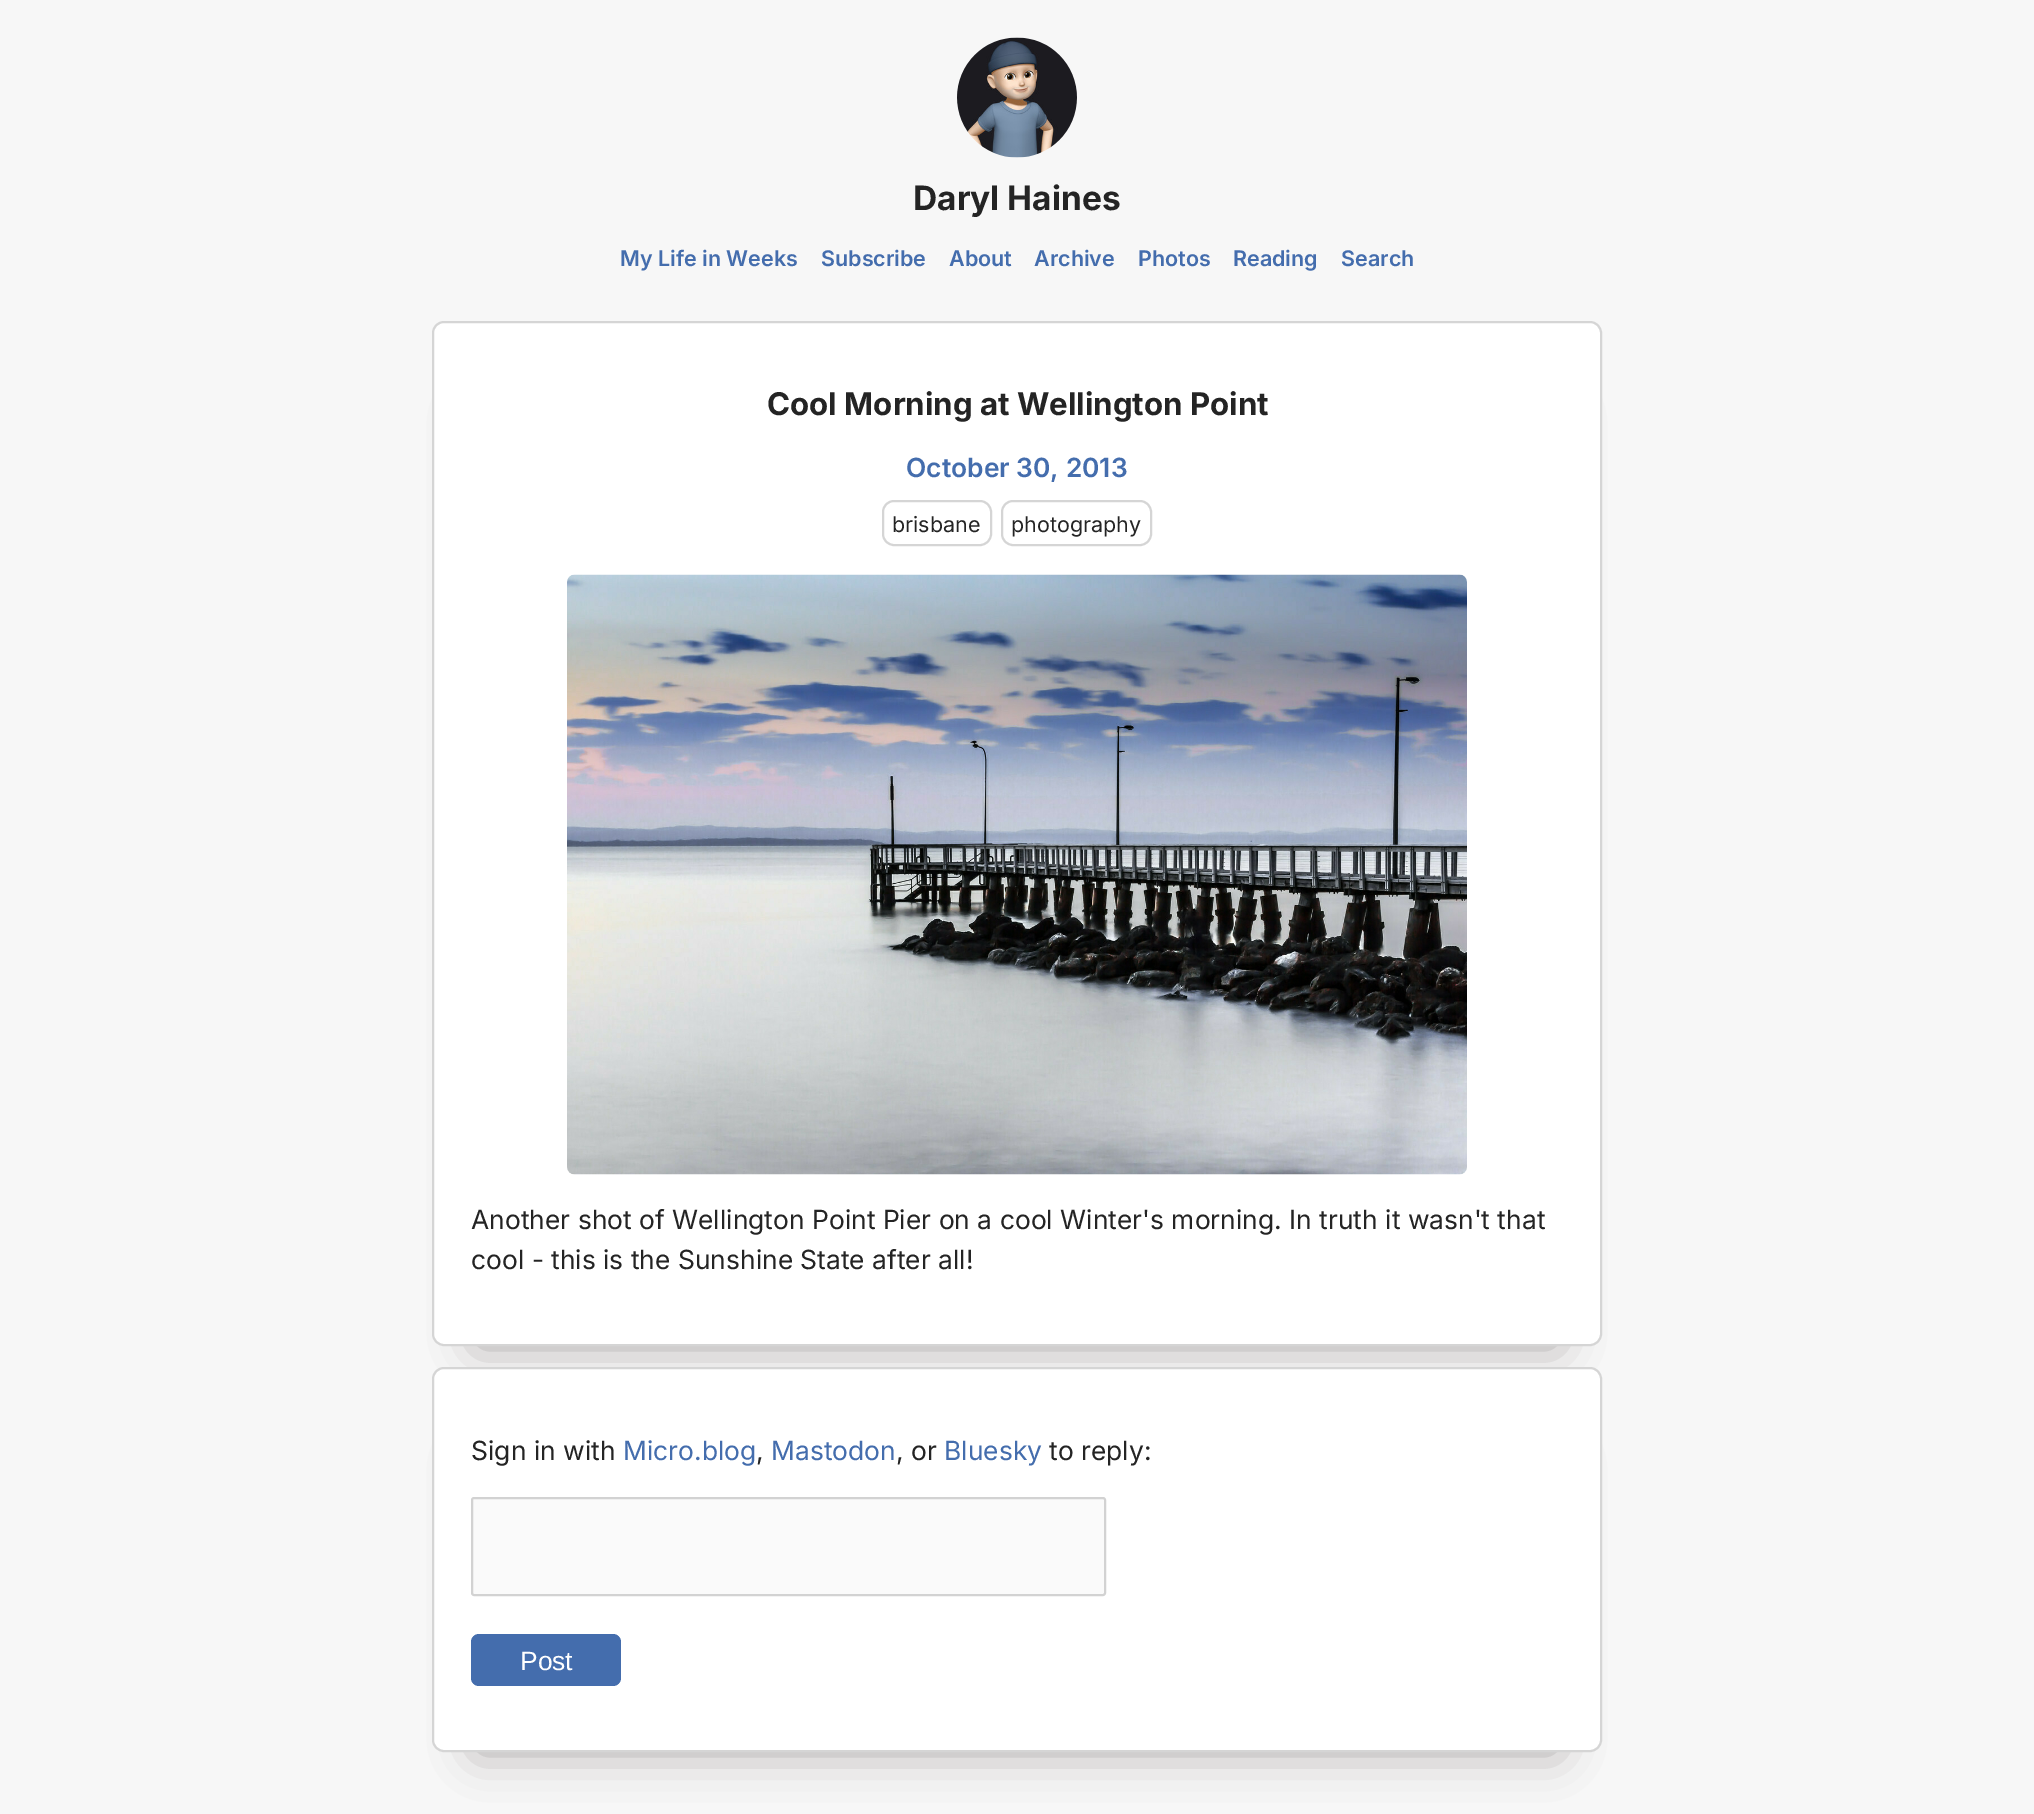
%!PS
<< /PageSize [2034 1814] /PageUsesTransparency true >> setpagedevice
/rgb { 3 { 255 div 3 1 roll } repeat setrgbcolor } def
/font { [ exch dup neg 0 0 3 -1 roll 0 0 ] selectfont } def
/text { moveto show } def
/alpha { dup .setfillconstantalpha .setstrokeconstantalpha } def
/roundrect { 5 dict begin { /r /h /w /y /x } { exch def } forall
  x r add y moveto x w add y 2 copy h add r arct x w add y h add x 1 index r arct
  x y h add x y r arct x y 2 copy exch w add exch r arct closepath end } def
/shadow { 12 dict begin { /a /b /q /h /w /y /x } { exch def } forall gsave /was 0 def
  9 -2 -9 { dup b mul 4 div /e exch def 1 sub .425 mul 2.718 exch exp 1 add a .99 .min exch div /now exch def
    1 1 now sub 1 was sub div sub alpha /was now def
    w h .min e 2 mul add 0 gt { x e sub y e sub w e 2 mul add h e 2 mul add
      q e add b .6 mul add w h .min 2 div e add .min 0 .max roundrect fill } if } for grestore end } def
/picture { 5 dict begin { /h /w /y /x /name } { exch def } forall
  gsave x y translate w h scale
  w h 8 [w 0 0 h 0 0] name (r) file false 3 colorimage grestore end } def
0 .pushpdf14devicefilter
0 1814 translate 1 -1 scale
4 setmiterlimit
247 247 247 rgb
0 0 2034 1814 rectfill
(img_01.rgb) 957 37 120 121 picture
167 165 165 rgb
477 411 1080 935 0 22.5 1 shadow
255 255 255 rgb
433 322 1168 1023 11 roundrect gsave fill grestore
213 213 213 rgb
2 setlinewidth
stroke
883 501 108 44 11 roundrect stroke
1002 501 149 44 11 roundrect stroke
(img_02.rgb) 567 574 900 601 picture
167 165 165 rgb
477 1457 1080 295 0 22.5 1 shadow
255 255 255 rgb
433 1368 1168 383 11 roundrect gsave fill grestore
213 213 213 rgb
stroke
250 250 250 rgb
472 1498 633 97 2 roundrect gsave fill grestore
210 210 210 rgb
stroke
68 109 173 rgb
471 1634 150 52 8 roundrect fill
/Inter-Bold 33.5 font
36 36 36 rgb
(Daryl Haines) 913 210 text
/Inter-SemiBold 21.5 font
68 109 173 rgb
(My Life in Weeks) 620 266 text
(Subscribe) 821 266 text
(About) 949 266 text
(Archive) 1034 266 text
(Photos) 1138 266 text
(Reading) 1233 266 text
(Search) 1341 266 text
/Inter-Bold 31.25 font
36 36 36 rgb
(Cool Morning at Wellington Point) 767 415 text
/Inter-SemiBold 26.4 font
68 109 173 rgb
(October 30, 2013) 906 477 text
/Inter-Regular 21.5 font
36 36 36 rgb
(brisbane) 892 532 text
(photography) 1011 532 text
/Inter-Regular 26.4 font
(Another shot of Wellington Point Pier on a cool Winter's morning. In truth it wasn't that) 471 1229 text
(cool - this is the Sunshine State after all!) 471 1269 text
(Sign in with) 471 1460 text
68 109 173 rgb
(Micro.blog) 623 1460 text
36 36 36 rgb
(,) 756 1460 text
68 109 173 rgb
(Mastodon) 771 1460 text
36 36 36 rgb
(, or) 896 1460 text
68 109 173 rgb
(Bluesky) 944 1460 text
36 36 36 rgb
(to reply:) 1049 1460 text
/LiberationSans-Regular 26.4 font
255 255 255 rgb
(Post) 520 1670 text
.poppdf14devicefilter showpage
